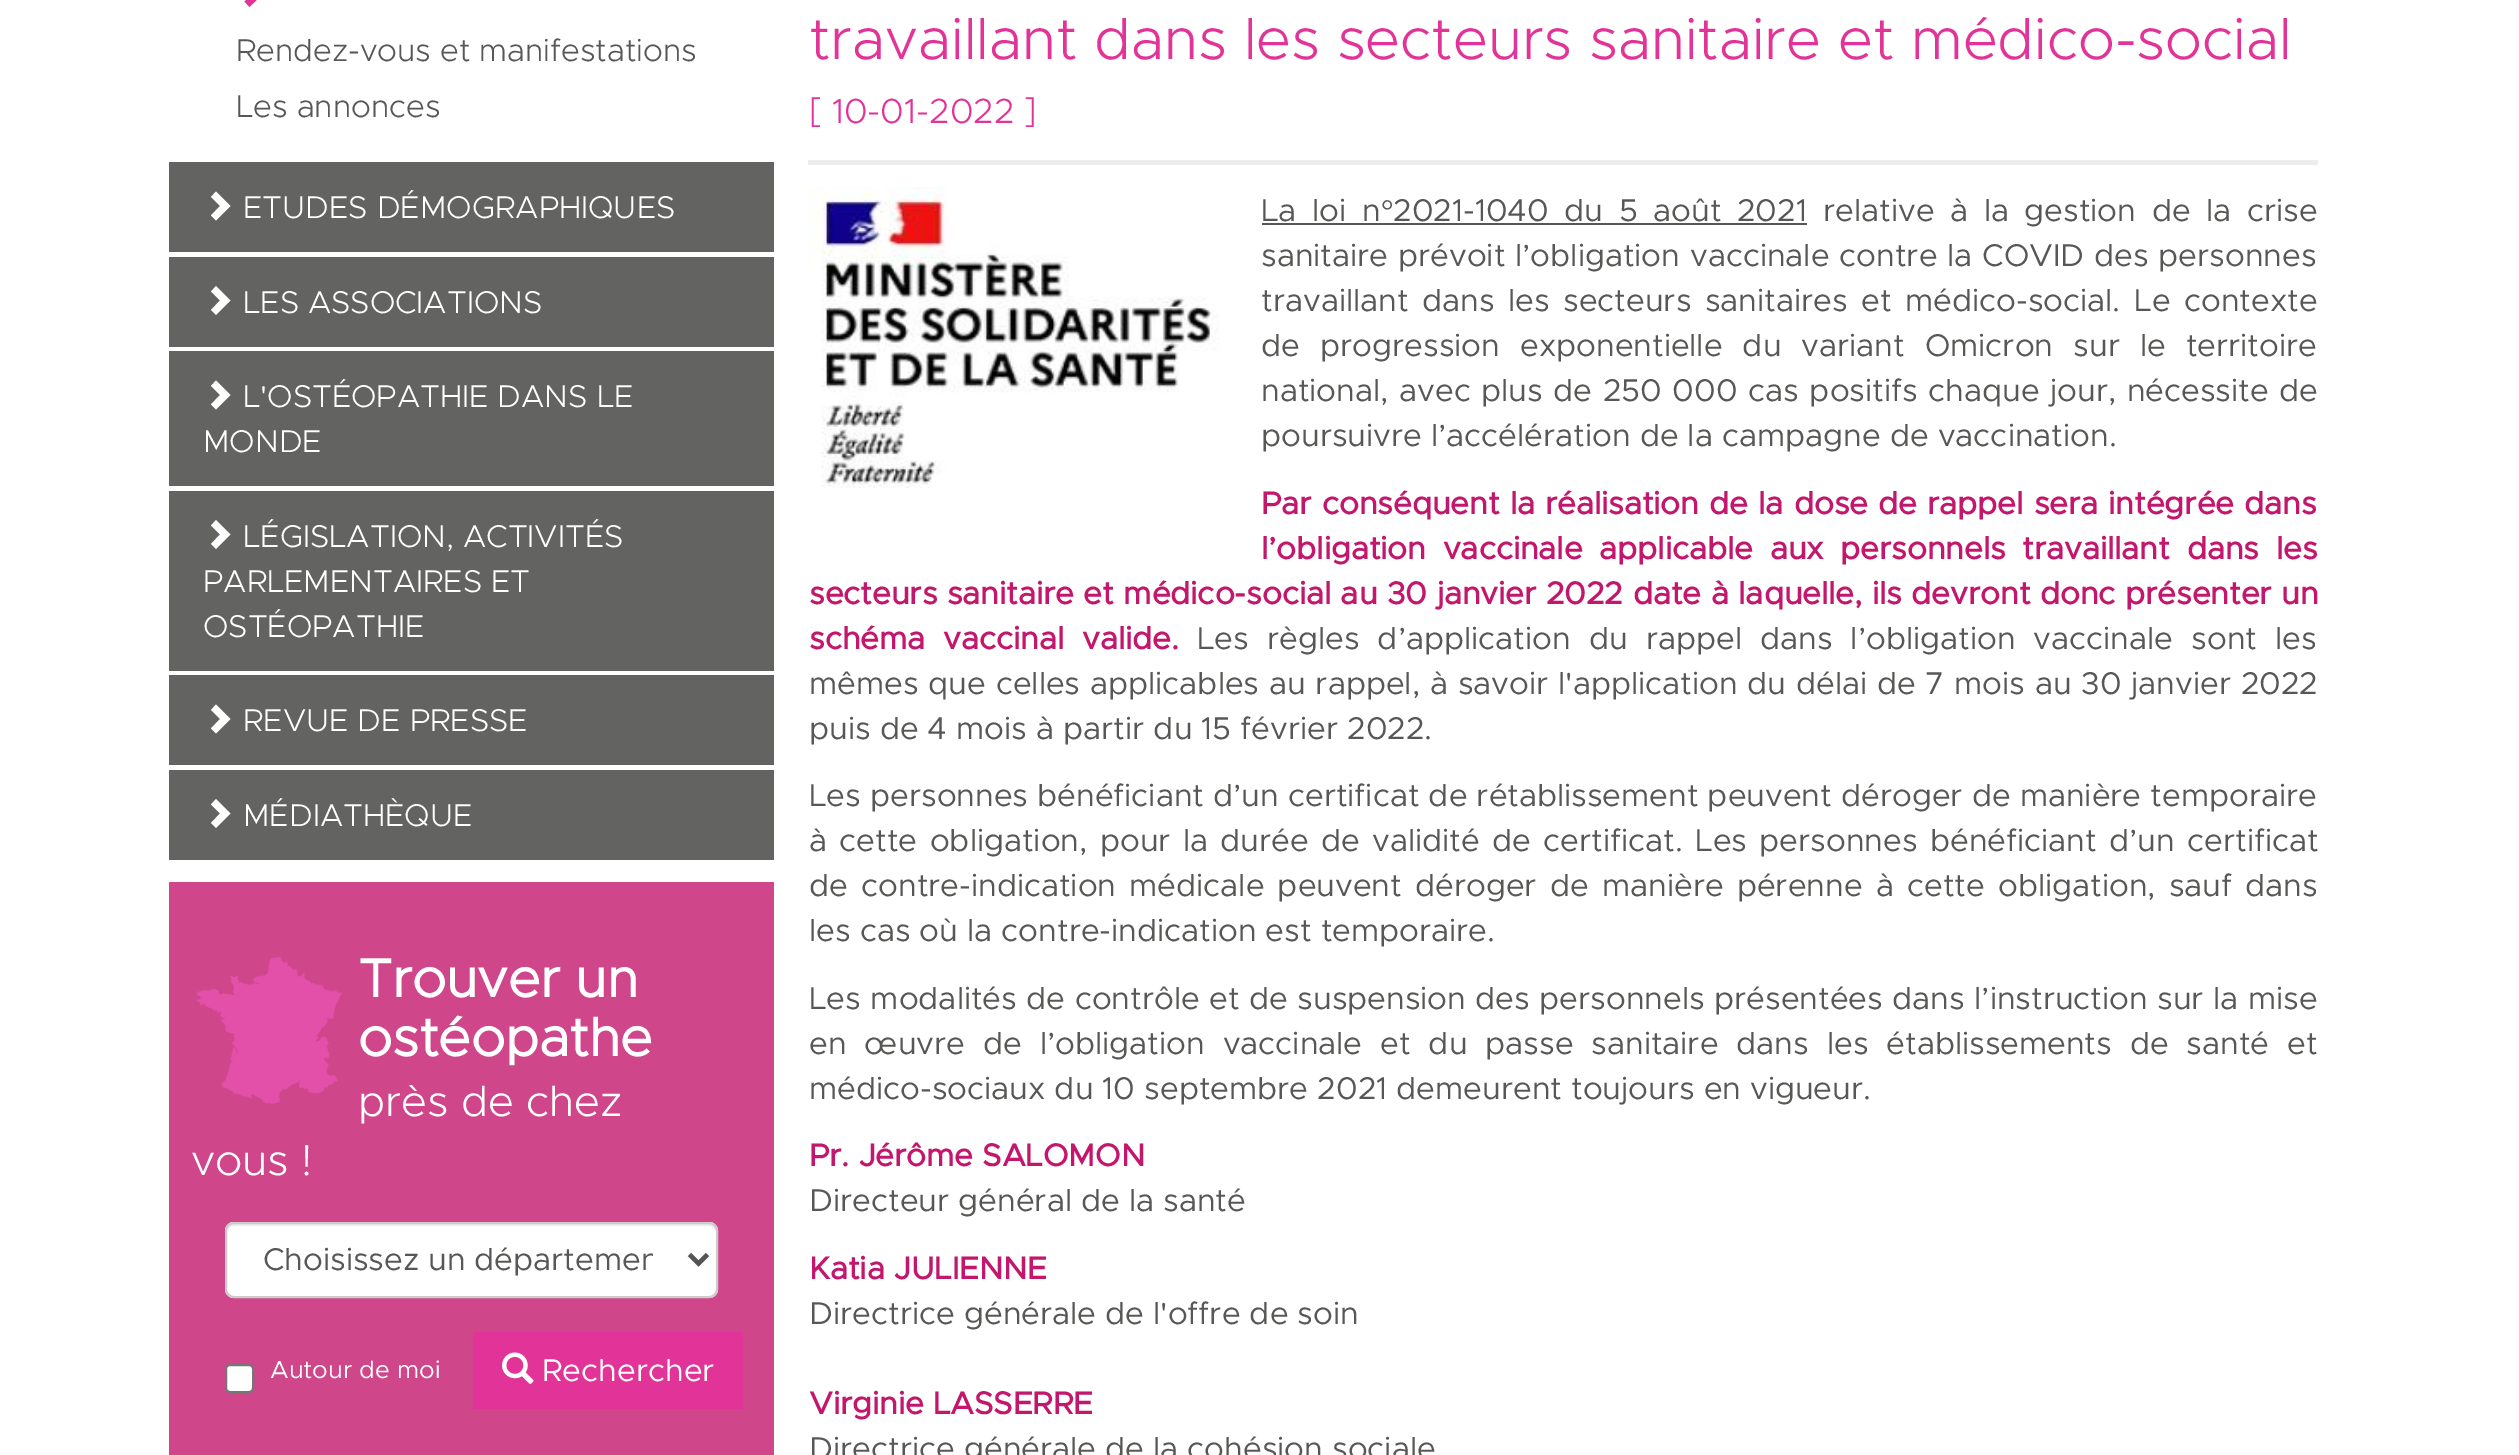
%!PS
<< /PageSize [2519 1455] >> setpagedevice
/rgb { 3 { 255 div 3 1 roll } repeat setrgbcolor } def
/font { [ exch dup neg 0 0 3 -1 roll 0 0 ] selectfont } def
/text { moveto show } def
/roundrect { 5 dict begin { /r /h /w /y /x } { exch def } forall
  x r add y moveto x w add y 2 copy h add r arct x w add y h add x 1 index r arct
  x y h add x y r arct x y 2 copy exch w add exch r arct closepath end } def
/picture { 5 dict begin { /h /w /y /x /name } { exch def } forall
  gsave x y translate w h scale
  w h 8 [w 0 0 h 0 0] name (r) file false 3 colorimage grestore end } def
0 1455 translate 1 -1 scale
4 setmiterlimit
255 255 255 rgb
0 0 2519 1455 rectfill
226 52 152 rgb
264 -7.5 moveto -14.5 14.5 rlineto -5 -5.5 rlineto 9.5 -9 rlineto -9.5 -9.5 rlineto 5 -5 rlineto closepath fill
99 99 98 rgb
169 162 605 90 rectfill
255 255 255 rgb
230.5 206 moveto -14.5 14.5 rlineto -5 -5 rlineto 9 -9.5 rlineto -9 -9 rlineto 5 -5.5 rlineto closepath fill
99 99 98 rgb
169 257 605 90 rectfill
255 255 255 rgb
230.5 300.5 moveto -14.5 14.5 rlineto -5 -5 rlineto 9 -9.5 rlineto -9 -9 rlineto 5 -5.5 rlineto closepath fill
99 99 98 rgb
169 351 605 135 rectfill
255 255 255 rgb
230.5 395 moveto -14.5 14.5 rlineto -5 -5 rlineto 9 -9.5 rlineto -9 -9 rlineto 5 -5.5 rlineto closepath fill
99 99 98 rgb
169 491 605 180 rectfill
255 255 255 rgb
230.5 534.5 moveto -14.5 14.5 rlineto -5 -5 rlineto 9 -9.5 rlineto -9 -9 rlineto 5 -5.5 rlineto closepath fill
99 99 98 rgb
169 675 605 90 rectfill
255 255 255 rgb
230.5 719 moveto -14.5 14.5 rlineto -5 -5 rlineto 9 -9.5 rlineto -9 -9 rlineto 5 -5.5 rlineto closepath fill
99 99 98 rgb
169 770 605 90 rectfill
255 255 255 rgb
230.5 813.5 moveto -14.5 14.5 rlineto -5 -5 rlineto 9 -9.5 rlineto -9 -9 rlineto 5 -5.5 rlineto closepath fill
207 70 138 rgb
169 882 605 573 rectfill
(img_01.rgb) 196 956 146 148 picture
255 255 255 rgb
225 1222 493 76 9 roundrect fill
236 236 236 rgb
234 1226 moveto 475 0 rlineto 3 0 7 3 7 7 rcurveto 0 -2 rlineto 0 -4 -3 -7 -7 -7 rcurveto -475 0 rlineto -4 0 -7 3 -7 7 rcurveto 0 2 rlineto 0 -4 3 -7 7 -7 rcurveto closepath fill
204 204 204 rgb
2 setlinewidth
226 1223 491 74 8 roundrect stroke
85 85 85 rgb
4.5 setlinewidth
689.5 1254.5 moveto 9 9 rlineto 9 -9 rlineto stroke
255 255 255 rgb
226 1365 27 27 4 roundrect gsave fill grestore
118 118 118 rgb
2 setlinewidth
stroke
226 52 152 rgb
473 1332 270 77 rectfill
(img_02.rgb) 502 1352 32 32 picture
237 237 237 rgb
808 160 1510 5 rectfill
(img_03.rgb) 808 187 412 301 picture
87 87 86 rgb
1262 223 545 2 rectfill
/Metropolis-Light 31.5 font
(Rendez-vous et manifestations) 236 61 text
(Les annonces) 236 117 text
255 255 255 rgb
(ETUDES DÉMOGRAPHIQUES) 243 218 text
(LES ASSOCIATIONS) 243 313 text
(L'OSTÉOPATHIE DANS LE) 243 407 text
(MONDE) 203 452 text
(LÉGISLATION, ACTIVITÉS) 243 547 text
(PARLEMENTAIRES ET) 203 592 text
(OSTÉOPATHIE) 203 637 text
(REVUE DE PRESSE) 243 731 text
(MÉDIATHÈQUE) 243 826 text
/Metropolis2-Bold 54 font
(Trouver un) 358 997 text
(ostéopathe) 358 1056 text
/Metropolis-Light 43.25 font
(près de chez) 358 1116 text
(vous !) 191 1175 text
gsave
263 1238 390 45 rectclip
/Metropolis-Regular 31.5 font
87 87 86 rgb
(Choisissez un départemen) 263 1270 text
grestore
/Metropolis-Regular 24.75 font
(Autour de moi) 270 1378 text
/Metropolis-Regular 31.5 font
(Rechercher) 542 1381 text
/Metropolis-Light 58.5 font
226 52 152 rgb
(travaillant dans les secteurs sanitaire et médico-social) 809 59 text
/Metropolis-Light 35 font
([ 10-01-2022 ]) 809 123 text
/Metropolis-Regular 31.5 font
87 87 86 rgb
1261 221 moveto 6.5 0 32 (La loi n) widthshow
/LiberationSerif-Regular 31.5 font
(°) 1381 221 text
/Metropolis-Regular 31.5 font
1393 221 moveto 6.5 0 32 (2021-1040 du 5 août 2021) widthshow
1823 221 moveto 6.5 0 32 (relative à la gestion de la crise) widthshow
1261 266 moveto 0.75 0 32 (sanitaire prévoit l’obligation vaccinale contre la COVID des personnes) widthshow
1261 311 moveto 4.5 0 32 (travaillant dans les secteurs sanitaires et médico-social. Le contexte) widthshow
1261 356 moveto 11 0 32 (de progression exponentielle du variant Omicron sur le territoire) widthshow
1261 401 moveto 1.5 0 32 (national, avec plus de 250 000 cas positifs chaque jour, nécessite de) widthshow
(poursuivre l’accélération de la campagne de vaccination.) 1261 446 text
/Metropolis-Bold 31.5 font
195 23 109 rgb
1261 514 moveto 1.1 0 32 (Par conséquent la réalisation de la dose de rappel sera intégrée dans) widthshow
1261 559 moveto 7.75 0 32 (l’obligation vaccinale applicable aux personnels travaillant dans les) widthshow
809 604 moveto 0.5 0 32 (secteurs sanitaire et médico-social au 30 janvier 2022 date à laquelle, ils devront donc présenter un) widthshow
809 649 moveto 9 0 32 (schéma vaccinal valide.) widthshow
/Metropolis-Regular 31.5 font
87 87 86 rgb
1197 649 moveto 9 0 32 (Les règles d’application du rappel dans l’obligation vaccinale sont les) widthshow
809 694 moveto 0.75 0 32 (mêmes que celles applicables au rappel, à savoir l'application du délai de 7 mois au 30 janvier 2022) widthshow
(puis de 4 mois à partir du 15 février 2022.) 809 739 text
(Les personnes bénéficiant d’un certificat de rétablissement peuvent déroger de manière temporaire) 809 806 text
809 851 moveto 3.25 0 32 (à cette obligation, pour la durée de validité de certificat. Les personnes bénéficiant d’un certificat) widthshow
809 896 moveto 4.1 0 32 (de contre-indication médicale peuvent déroger de manière pérenne à cette obligation, sauf dans) widthshow
(les cas où la contre-indication est temporaire.) 809 941 text
809 1009 moveto 0.4 0 32 (Les modalités de contrôle et de suspension des personnels présentées dans l’instruction sur la mise) widthshow
809 1054 moveto 8.9 0 32 (en œuvre de l’obligation vaccinale et du passe sanitaire dans les établissements de santé et) widthshow
(médico-sociaux du 10 septembre 2021 demeurent toujours en vigueur.) 809 1099 text
/Metropolis-Bold 31.5 font
195 23 109 rgb
(Pr. Jérôme SALOMON) 809 1166 text
/Metropolis-Regular 31.5 font
87 87 86 rgb
(Directeur général de la santé) 809 1211 text
/Metropolis-Bold 31.5 font
195 23 109 rgb
(Katia JULIENNE) 809 1279 text
/Metropolis-Regular 31.5 font
87 87 86 rgb
(Directrice générale de l'offre de soin) 809 1324 text
/Metropolis-Bold 31.5 font
195 23 109 rgb
(Virginie LASSERRE) 809 1414 text
/Metropolis-Regular 31.5 font
87 87 86 rgb
(Directrice générale de la cohésion sociale) 809 1459 text
showpage
